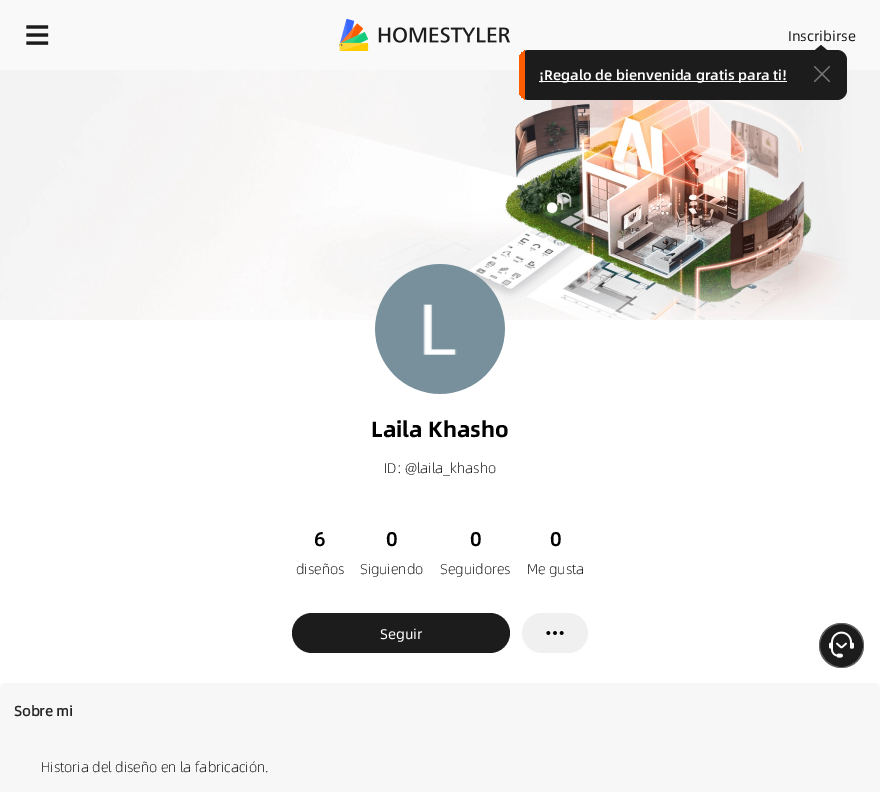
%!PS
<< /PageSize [880 792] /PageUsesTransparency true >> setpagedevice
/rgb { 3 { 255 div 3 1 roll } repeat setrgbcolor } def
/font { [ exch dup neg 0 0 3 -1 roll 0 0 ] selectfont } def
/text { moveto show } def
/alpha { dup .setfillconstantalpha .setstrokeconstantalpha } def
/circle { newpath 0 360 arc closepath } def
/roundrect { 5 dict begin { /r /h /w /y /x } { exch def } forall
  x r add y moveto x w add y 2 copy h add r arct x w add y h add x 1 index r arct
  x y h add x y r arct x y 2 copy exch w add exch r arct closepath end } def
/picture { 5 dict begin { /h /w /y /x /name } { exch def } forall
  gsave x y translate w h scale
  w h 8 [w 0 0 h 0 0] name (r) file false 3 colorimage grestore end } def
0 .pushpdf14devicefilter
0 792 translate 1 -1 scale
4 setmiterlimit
255 255 255 rgb
0 0 880 792 rectfill
249 249 249 rgb
0 0 880 70 rectfill
(img_01.rgb) 26 25 23 20 picture
(img_02.rgb) 339 19 171 32 picture
28 28 28 rgb
827 50 moveto -12 0 rlineto 6 -5 rlineto closepath fill
(img_04.rgb) 0 70 880 250 picture
519 50 328 50 10 roundrect fill
gsave
519 50 328 50 10 roundrect clip newpath
255 92 0 rgb
519 50 6 50 rectfill
grestore
255 255 255 rgb
539 81 248 1 rectfill
(img_03.rgb) 814 66 16 17 picture
(img_05.rgb) 375 264 130 130 picture
28 28 28 rgb
292 613 218 40 20 roundrect fill
240 240 240 rgb
522 613 66 40 20 roundrect fill
(img_06.rgb) 546 631 18 4 picture
247 247 247 rgb
0 683 880 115 6 roundrect fill
28 28 28 rgb
841.5 645.5 22.5 circle fill
0.3 alpha
255 255 255 rgb
841.5 645.5 22 circle stroke
1 alpha
(img_07.rgb) 829 631 25 27 picture
/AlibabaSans-Regular 14 font
28 28 28 rgb
(Inscribirse) 788 41 text
/AlibabaSans-Medium 14 font
255 255 255 rgb
(¡Regalo de bienvenida gratis para ti!) 539 80 text
/AlibabaSans-Bold 22 font
0 0 0 rgb
(Laila Khasho) 371 437 text
/AlibabaSans-Light 14 font
(ID: @laila_khasho) 384 473 text
/AlibabaSans-Medium 20 font
(6) 314 546 text
/AlibabaSans-Light 14 font
(diseños) 296 574 text
/AlibabaSans-Medium 20 font
(0) 386 546 text
/AlibabaSans-Light 14 font
(Siguiendo) 360 574 text
/AlibabaSans-Medium 20 font
(0) 470 546 text
/AlibabaSans-Light 14 font
(Seguidores) 440 574 text
/AlibabaSans-Medium 20 font
(0) 550 546 text
/AlibabaSans-Light 14 font
(Me gusta) 527 574 text
/AlibabaSans-Regular 14 font
255 255 255 rgb
(Seguir) 380 639 text
/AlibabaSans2-Bold 14 font
37 37 37 rgb
(Sobre mi) 14 716 text
/AlibabaSans-Light 14 font
0 0 0 rgb
(Historia del diseño en la fabricación.) 41 772 text
.poppdf14devicefilter showpage
